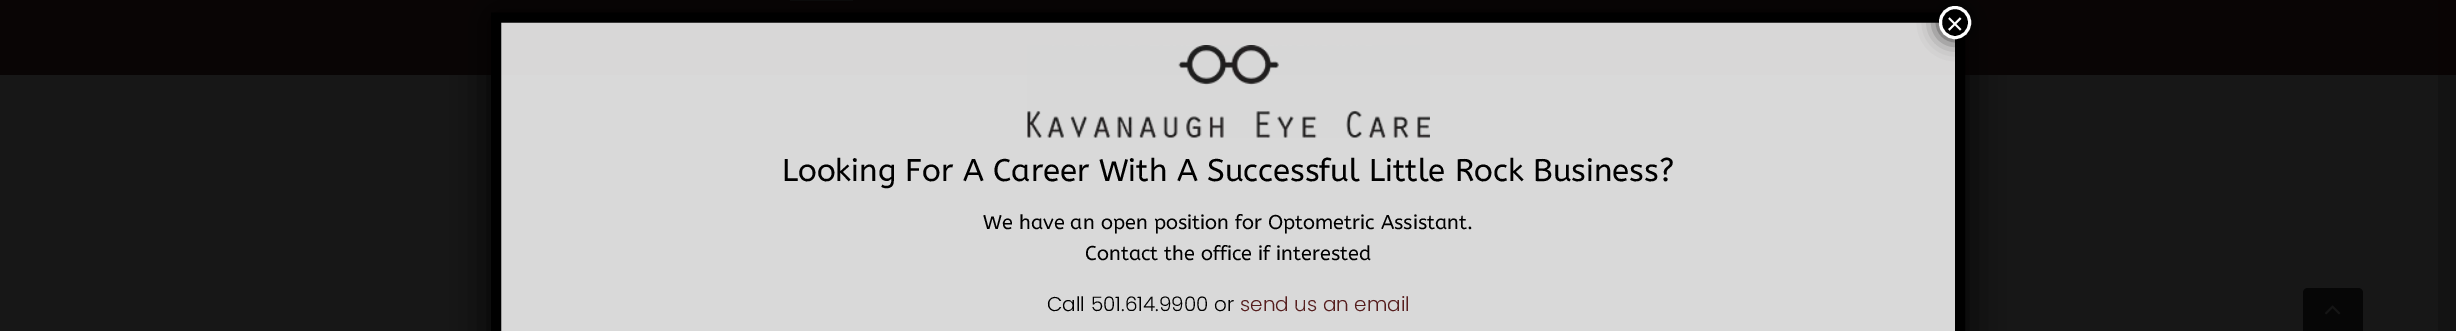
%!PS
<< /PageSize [2456 331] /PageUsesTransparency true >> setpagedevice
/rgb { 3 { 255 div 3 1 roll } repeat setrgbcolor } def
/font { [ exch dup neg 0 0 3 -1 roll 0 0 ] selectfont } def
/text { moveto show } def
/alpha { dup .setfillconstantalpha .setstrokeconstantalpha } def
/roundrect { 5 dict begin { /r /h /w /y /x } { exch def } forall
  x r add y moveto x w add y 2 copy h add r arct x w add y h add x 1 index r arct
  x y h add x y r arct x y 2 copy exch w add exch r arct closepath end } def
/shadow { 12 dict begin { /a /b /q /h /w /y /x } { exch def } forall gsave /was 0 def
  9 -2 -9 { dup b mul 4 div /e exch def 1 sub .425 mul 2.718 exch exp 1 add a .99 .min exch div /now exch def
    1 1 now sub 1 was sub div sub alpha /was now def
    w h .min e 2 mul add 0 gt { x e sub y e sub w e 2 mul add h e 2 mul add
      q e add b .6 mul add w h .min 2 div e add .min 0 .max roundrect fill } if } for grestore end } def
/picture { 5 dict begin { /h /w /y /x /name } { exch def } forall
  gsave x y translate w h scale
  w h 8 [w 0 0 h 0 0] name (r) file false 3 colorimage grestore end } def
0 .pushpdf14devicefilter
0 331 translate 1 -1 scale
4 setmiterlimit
19 19 19 rgb
0 0 2456 331 rectfill
9 4 4 rgb
2438 0 18 75 rectfill
23 23 23 rgb
0 75 2438 256 rectfill
9 5 5 rgb
0 0 2438 75 rectfill
14 14 14 rgb
790 0 63 1 rectfill
gsave
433 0 moveto 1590 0 rlineto 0 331 rlineto -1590 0 rlineto closepath 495 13 moveto 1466 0 rlineto 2 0 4 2 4 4 rcurveto 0 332 rlineto 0 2 -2 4 -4 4 rcurveto -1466 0 rlineto -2 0 -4 -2 -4 -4 rcurveto 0 -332 rlineto 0 -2 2 -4 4 -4 rcurveto closepath eoclip newpath
2 2 2 rgb
491 13 1474 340 4 19 1 shadow
grestore
0.9 alpha
238 238 238 rgb
501 22 1454 309 rectfill
1 alpha
0 0 0 rgb
10 setlinewidth
496 17.5 moveto 1464 0 rlineto 0 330 rlineto -1464 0 rlineto closepath stroke
2 2 2 rgb
1938 5 35 35 17.5 9.5 0.75 shadow
0 0 0 rgb
1940.5 7.5 29 30 14.5 roundrect gsave fill grestore
255 255 255 rgb
3 setlinewidth
stroke
(img_01.rgb) 1027 45 403 93 picture
6 6 6 rgb
2308 288 moveto 50 0 rlineto 3 0 5 2 5 5 rcurveto 0 38 rlineto -60 0 rlineto 0 -38 rlineto 0 -3 2 -5 5 -5 rcurveto closepath fill
(img_02.rgb) 2325 305 16 10 picture
/LiberationSans-Regular 30 font
255 255 255 rgb
(×) 1946 34 text
/ABeeZee-Regular 31.25 font
0 0 0 rgb
(Looking For A Career With A Successful Little Rock Business?) 782 181 text
/ABeeZee-Regular 20 font
(We have an open position for Optometric Assistant.) 983 229 text
(Contact the office if interested) 1085 260 text
/Poppins-Light 20 font
(Call 501.614.9900 or) 1047 311 text
86 30 30 rgb
(send us an email) 1240 311 text
.poppdf14devicefilter showpage
